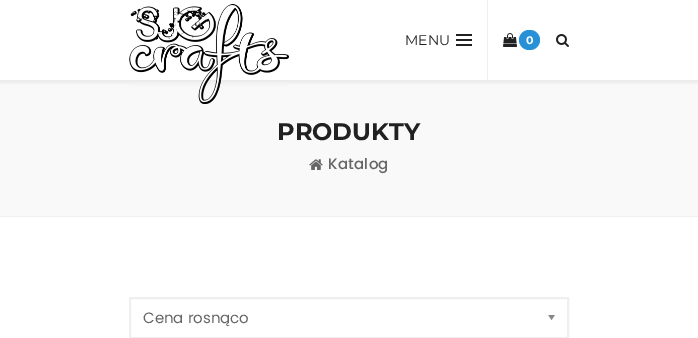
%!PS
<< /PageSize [698 338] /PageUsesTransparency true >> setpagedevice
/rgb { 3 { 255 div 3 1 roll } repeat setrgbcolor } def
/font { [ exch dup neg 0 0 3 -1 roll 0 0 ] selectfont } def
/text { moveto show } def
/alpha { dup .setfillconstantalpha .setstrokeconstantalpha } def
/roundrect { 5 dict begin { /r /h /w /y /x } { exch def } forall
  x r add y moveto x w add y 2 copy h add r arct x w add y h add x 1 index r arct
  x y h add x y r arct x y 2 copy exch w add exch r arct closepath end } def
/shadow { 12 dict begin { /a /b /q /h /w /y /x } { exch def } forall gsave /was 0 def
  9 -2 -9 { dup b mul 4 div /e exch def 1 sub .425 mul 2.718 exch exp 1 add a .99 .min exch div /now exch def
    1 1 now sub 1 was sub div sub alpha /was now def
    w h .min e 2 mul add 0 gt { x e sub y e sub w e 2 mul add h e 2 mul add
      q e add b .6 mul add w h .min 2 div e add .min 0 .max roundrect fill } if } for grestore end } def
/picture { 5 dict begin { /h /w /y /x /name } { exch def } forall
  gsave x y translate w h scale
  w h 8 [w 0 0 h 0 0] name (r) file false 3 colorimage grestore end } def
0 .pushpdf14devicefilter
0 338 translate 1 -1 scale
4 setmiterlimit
255 255 255 rgb
0 0 698 338 rectfill
249 249 249 rgb
0 80 698 136 rectfill
gsave
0 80 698 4 rectclip
0 0 0 rgb
0 1 698 80 0 4 0.1 shadow
grestore
(img_01.rgb) 129 4 160 100 picture
33 33 33 rgb
456 39 16 2 rectfill
456 34 16 2 rectfill
456 44 16 2 rectfill
239 239 239 rgb
487 0 1 80 rectfill
(img_02.rgb) 503 33 14 14 picture
39 145 216 rgb
519 30 21 20 10 roundrect fill
(img_03.rgb) 556 34 13 13 picture
239 239 239 rgb
0 216 698 1 rectfill
(img_04.rgb) 309 159 14 11 picture
2 setlinewidth
130 298 438 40 rectstroke
(img_05.rgb) 548 315 7 6 picture
/Montserrat-Regular 14 font
33 33 33 rgb
(MENU) 405 45 text
/Montserrat-Bold 11 font
255 255 255 rgb
(0) 526 44 text
/Montserrat-Bold 24 font
33 33 33 rgb
(PRODUKTY) 277 140 text
/Poppins-Medium 15 font
102 102 102 rgb
328 169 moveto 0.25 0 (Katalog) ashow
/Poppins-Regular 15 font
(Cena rosnąco) 143 323 text
.poppdf14devicefilter showpage
